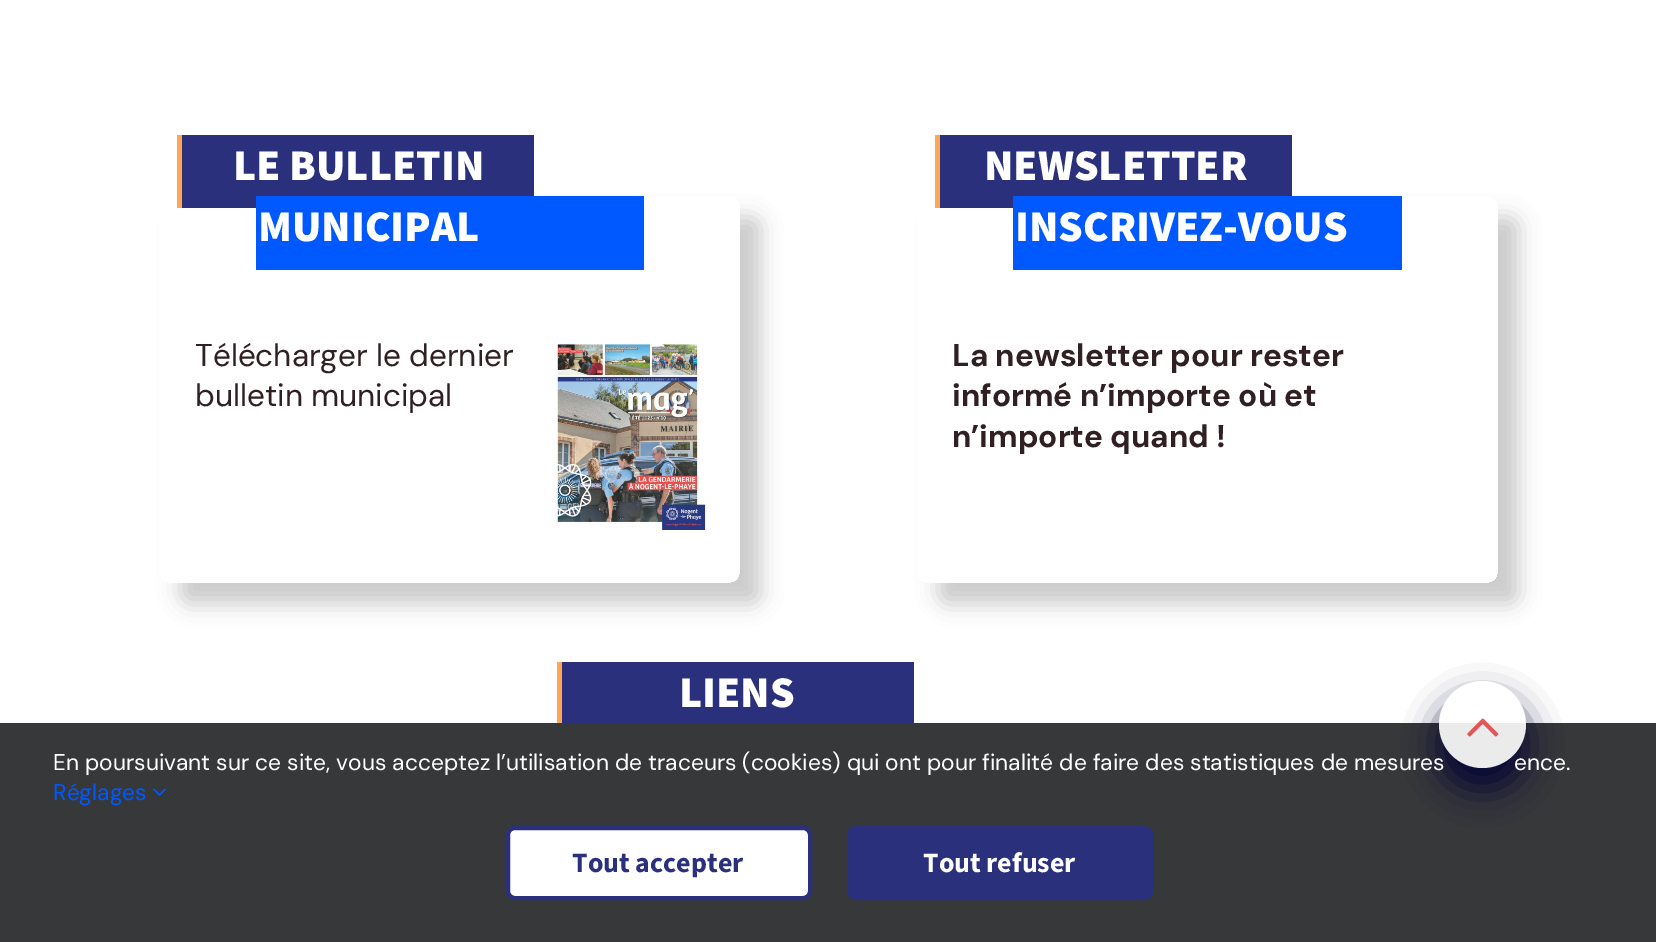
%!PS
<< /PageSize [1656 942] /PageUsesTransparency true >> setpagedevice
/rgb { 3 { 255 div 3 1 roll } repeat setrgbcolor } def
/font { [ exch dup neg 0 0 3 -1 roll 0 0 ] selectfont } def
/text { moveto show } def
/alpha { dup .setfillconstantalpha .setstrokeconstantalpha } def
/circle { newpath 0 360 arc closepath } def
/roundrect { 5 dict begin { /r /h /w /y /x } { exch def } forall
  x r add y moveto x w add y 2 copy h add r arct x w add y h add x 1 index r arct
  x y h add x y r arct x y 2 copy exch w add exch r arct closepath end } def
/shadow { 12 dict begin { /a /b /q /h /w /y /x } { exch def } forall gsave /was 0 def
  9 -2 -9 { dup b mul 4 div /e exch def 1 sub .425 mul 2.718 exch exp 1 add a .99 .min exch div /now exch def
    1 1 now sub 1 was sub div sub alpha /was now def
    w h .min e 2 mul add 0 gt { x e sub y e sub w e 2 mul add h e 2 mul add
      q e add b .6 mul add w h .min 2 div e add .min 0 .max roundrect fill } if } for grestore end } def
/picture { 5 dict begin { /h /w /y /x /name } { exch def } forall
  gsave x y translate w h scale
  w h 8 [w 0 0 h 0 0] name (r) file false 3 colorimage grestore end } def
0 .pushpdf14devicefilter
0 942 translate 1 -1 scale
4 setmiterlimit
255 255 255 rgb
0 0 1656 942 rectfill
gsave
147 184 moveto 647 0 rlineto 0 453 rlineto -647 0 rlineto closepath 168 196 moveto 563 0 rlineto 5 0 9 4 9 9 rcurveto 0 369 rlineto 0 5 -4 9 -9 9 rcurveto -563 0 rlineto -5 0 -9 -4 -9 -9 rcurveto 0 -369 rlineto 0 -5 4 -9 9 -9 rcurveto closepath eoclip newpath
0 0 0 rgb
180 217 581 387 9 10.5 0.2 shadow
grestore
43 48 124 rgb
182 135 352 73 rectfill
255 166 84 rgb
177 135 5 73 rectfill
0 88 255 rgb
256 196 388 74 rectfill
(img_01.rgb) 556 343 150 187 picture
gsave
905 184 moveto 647 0 rlineto 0 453 rlineto -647 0 rlineto closepath 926 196 moveto 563 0 rlineto 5 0 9 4 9 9 rcurveto 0 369 rlineto 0 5 -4 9 -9 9 rcurveto -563 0 rlineto -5 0 -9 -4 -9 -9 rcurveto 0 -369 rlineto 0 -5 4 -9 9 -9 rcurveto closepath eoclip newpath
0 0 0 rgb
938 217 581 387 9 10.5 0.2 shadow
grestore
43 48 124 rgb
940 135 352 73 rectfill
255 166 84 rgb
935 135 5 73 rectfill
0 88 255 rgb
1013 196 389 74 rectfill
43 48 124 rgb
562 662 352 61 rectfill
255 166 84 rgb
557 662 5 61 rectfill
54 56 57 rgb
0 723 1656 219 rectfill
gsave
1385 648 moveto 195 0 rlineto 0 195 rlineto -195 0 rlineto closepath 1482.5 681 moveto 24 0 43.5 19.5 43.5 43.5 rcurveto 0 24 -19.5 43.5 -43.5 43.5 rcurveto -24 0 -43.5 -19.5 -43.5 -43.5 rcurveto 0 -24 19.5 -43.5 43.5 -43.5 rcurveto closepath eoclip newpath
0 0 51 rgb
1439 702 87 87 43.5 17.5 0.9 shadow
grestore
(img_03.rgb) 153 788 13 8 picture
255 255 255 rgb
508 828 302 70 7 roundrect gsave fill grestore
43 48 124 rgb
4 setlinewidth
stroke
849 828 302 70 7 roundrect gsave fill grestore
stroke
/SourceSans3-Black 43.75 font
255 255 255 rgb
(LE BULLETIN) 233 180 text
(MUNICIPAL) 258 241 text
/DMSans-Regular 31.5 font
48 32 35 rgb
(Télécharger le dernier) 195 366 text
(bulletin municipal) 195 406 text
/SourceSans3-Black 43.75 font
255 255 255 rgb
(NEWSLETTER) 984 180 text
(INSCRIVEZ-VOUS) 1015 241 text
/DMSans-Bold 31.5 font
48 32 35 rgb
(La newsletter pour rester) 952 366 text
(informé n’importe où et) 952 406 text
(n’importe quand !) 952 447 text
/SourceSans3-Black 43.75 font
255 255 255 rgb
(LIENS) 679 707 text
/DMSans-Regular 22.75 font
(En poursuivant sur ce site, vous acceptez l’utilisation de traceurs \(cookies\) qui ont pour finalité de faire des statistiques de mesures) 53 770 text
(ence.) 1514 770 text
0.9 alpha
1482.5 724.5 43.5 circle fill
1 alpha
(img_02.rgb) 1467 718 32 19 picture
0 88 255 rgb
(Réglages) 53 800 text
/SourceSans3-Bold 28 font
43 48 124 rgb
(Tout accepter) 572 872 text
255 255 255 rgb
(Tout refuser) 923 872 text
.poppdf14devicefilter showpage
